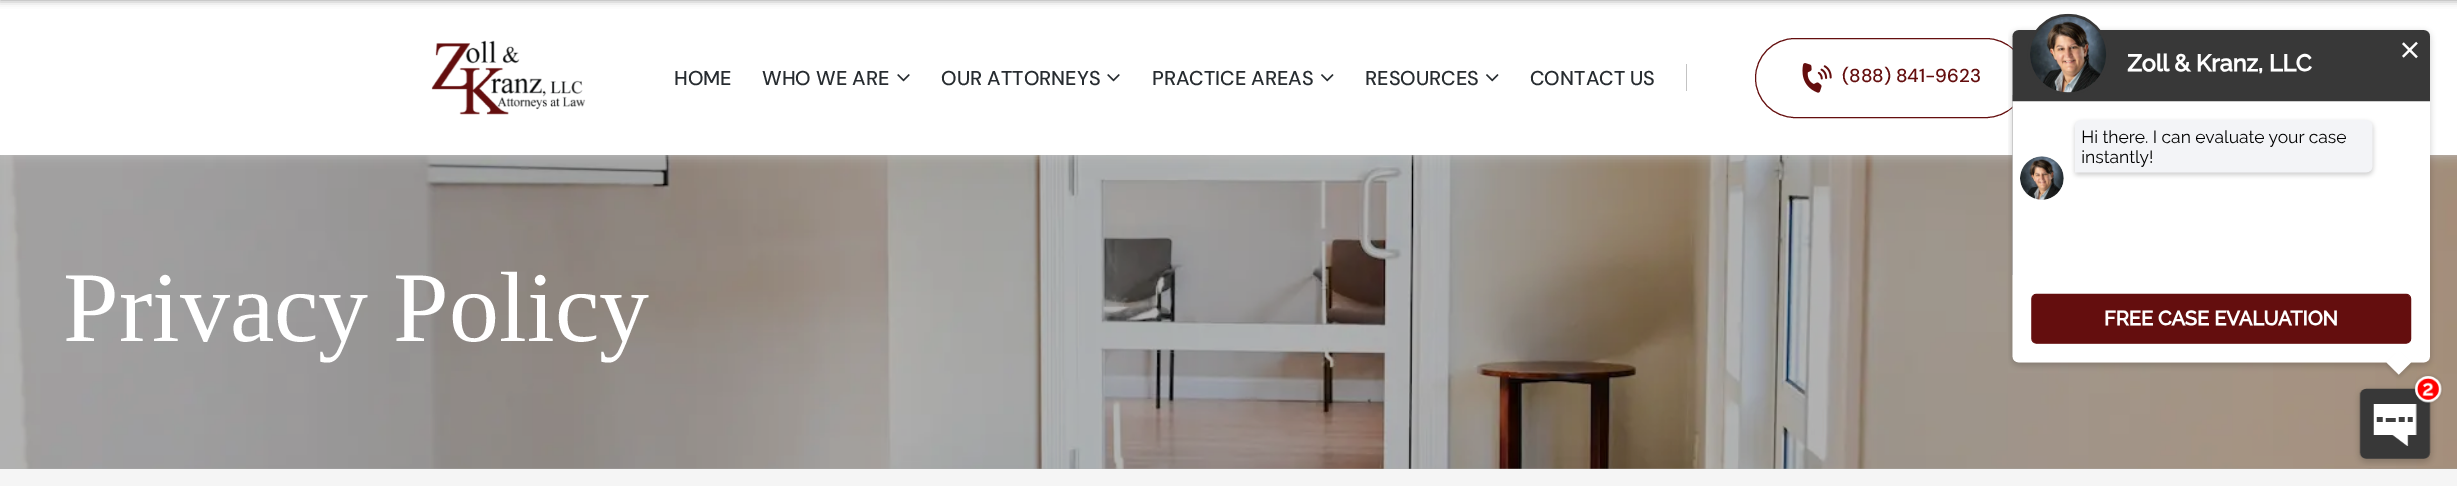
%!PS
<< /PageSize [2457 486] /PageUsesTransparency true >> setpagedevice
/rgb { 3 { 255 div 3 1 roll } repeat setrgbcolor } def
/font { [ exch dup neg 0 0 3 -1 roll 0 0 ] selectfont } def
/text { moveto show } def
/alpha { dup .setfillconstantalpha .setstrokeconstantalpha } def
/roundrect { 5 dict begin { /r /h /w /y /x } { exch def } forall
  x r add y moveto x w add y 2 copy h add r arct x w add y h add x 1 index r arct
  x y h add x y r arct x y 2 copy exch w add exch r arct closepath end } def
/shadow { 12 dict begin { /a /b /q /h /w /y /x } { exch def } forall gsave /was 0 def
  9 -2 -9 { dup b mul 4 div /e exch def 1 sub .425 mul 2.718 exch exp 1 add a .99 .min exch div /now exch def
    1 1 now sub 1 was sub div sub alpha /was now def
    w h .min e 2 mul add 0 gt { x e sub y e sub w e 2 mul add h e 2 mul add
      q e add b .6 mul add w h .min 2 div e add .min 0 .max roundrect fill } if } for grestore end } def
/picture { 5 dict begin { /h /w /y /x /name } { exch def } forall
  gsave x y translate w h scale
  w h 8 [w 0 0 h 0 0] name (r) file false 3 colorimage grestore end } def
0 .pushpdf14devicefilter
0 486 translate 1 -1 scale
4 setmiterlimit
255 255 255 rgb
0 0 2457 486 rectfill
128 128 128 rgb
2370 394 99 75 2.5 3 1 shadow
(img_06.rgb) 0 155 2457 314 picture
0.3 alpha
0 0 0 rgb
0 155 2457 314 rectfill
1 alpha
191 191 191 rgb
0 0 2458 155 0 6 1 shadow
255 255 255 rgb
0 0 2457 155 rectfill
0 0 0 rgb
0 -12 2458 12 0 4 0.42 shadow
(img_01.rgb) 431 40 155 75 picture
(img_02.rgb) 897 74 13 8 picture
(img_02.rgb) 1107 74 13 8 picture
(img_03.rgb) 1321 74 13 8 picture
(img_03.rgb) 1486 74 13 8 picture
195 195 195 rgb
1686 64 1 27 rectfill
100 14 14 rgb
1755.5 38.5 270 79 39.5 roundrect stroke
(img_04.rgb) 1802 63 30 30 picture
(img_05.rgb) 2008 13 435 453 picture
245 245 245 rgb
0 469 2457 17 rectfill
/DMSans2-Medium 20 font
39 44 48 rgb
(HOME) 674 85 text
(WHO WE ARE) 762 85 text
(OUR ATTORNEYS) 941 85 text
(PRACTICE AREAS) 1152 85 text
(RESOURCES) 1365 85 text
(CONTACT US) 1530 85 text
/DMSans-Medium 18.75 font
100 14 14 rgb
(\(888\) 841-9623) 1842 82 text
/LiberationSerif-Regular 100 font
255 255 255 rgb
(Privacy Policy) 63 341 text
.poppdf14devicefilter showpage
